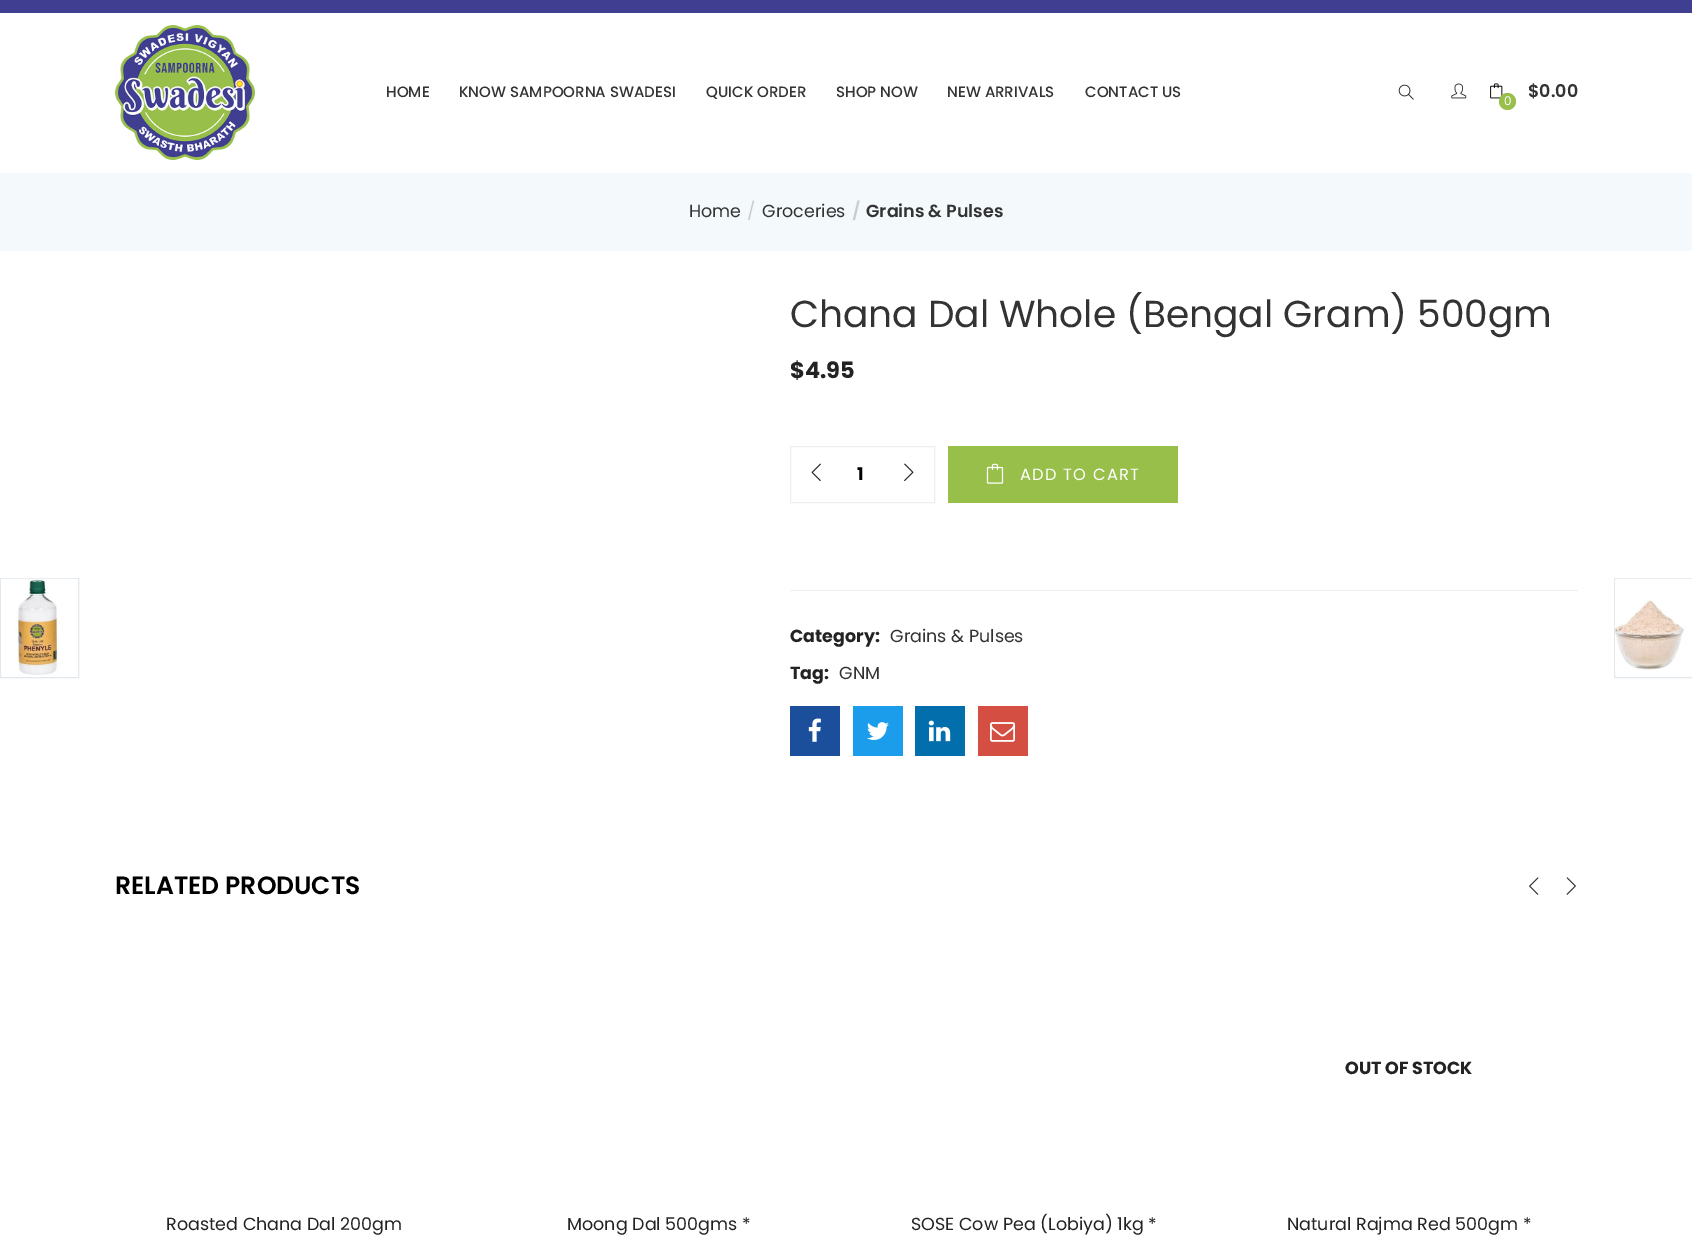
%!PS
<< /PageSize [1692 1255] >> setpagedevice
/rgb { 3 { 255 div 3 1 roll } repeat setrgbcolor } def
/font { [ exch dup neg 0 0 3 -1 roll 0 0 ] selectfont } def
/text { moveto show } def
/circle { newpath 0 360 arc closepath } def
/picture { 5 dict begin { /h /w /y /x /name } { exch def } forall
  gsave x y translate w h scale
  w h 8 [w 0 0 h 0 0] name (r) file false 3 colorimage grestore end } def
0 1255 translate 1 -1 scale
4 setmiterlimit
255 255 255 rgb
0 0 1692 1255 rectfill
64 62 145 rgb
0 0 1692 13 rectfill
(img_01.rgb) 115 25 140 135 picture
(img_02.rgb) 1398 84 16 16 picture
(img_03.rgb) 1451 83 16 16 picture
(img_04.rgb) 1490 83 13 16 picture
151 191 73 rgb
1507.5 101.5 8.5 circle fill
244 249 252 rgb
0 173 1692 78 rectfill
238 238 238 rgb
790.5 446.5 144 56 rectstroke
(img_05.rgb) 811 463 10 18 picture
(img_06.rgb) 904 463 10 19 picture
151 191 73 rgb
948 446 230 57 rectfill
(img_07.rgb) 986 463 18 21 picture
238 238 238 rgb
790 590 788 1 rectfill
27 78 155 rgb
790 706 50 50 rectfill
(img_08.rgb) 808 718 13 24 picture
28 157 235 rgb
853 706 50 50 rectfill
(img_09.rgb) 867 722 22 18 picture
2 111 172 rgb
915 706 50 50 rectfill
(img_10.rgb) 928 720 23 22 picture
212 79 66 rgb
978 706 50 50 rectfill
(img_11.rgb) 990 722 25 20 picture
(img_12.rgb) 1529 877 10 18 picture
(img_13.rgb) 1566 877 10 18 picture
225 232 238 rgb
0.5 578.5 78 99 rectstroke
(img_14.rgb) 1 578 76 97 picture
1614.5 578.5 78 99 rectstroke
(img_15.rgb) 1615 578 76 93 picture
/Poppins-Medium 15 font
51 51 51 rgb
(HOME) 386 97 text
(KNOW SAMPOORNA SWADESI) 459 97 text
(QUICK ORDER) 706 97 text
(SHOP NOW) 836 97 text
(NEW ARRIVALS) 947 97 text
(CONTACT US) 1085 97 text
/Poppins-SemiBold 17.5 font
($0.00) 1528 97 text
/Poppins-Regular 12 font
255 255 255 rgb
(0) 1504 105 text
/Poppins-Regular 17.5 font
51 51 51 rgb
(Home) 689 217 text
204 204 204 rgb
(/) 747 217 text
51 51 51 rgb
(Groceries) 762 217 text
/Poppins-SemiBold 17.5 font
204 204 204 rgb
(/) 852 217 text
51 51 51 rgb
(Grains & Pulses) 866 217 text
/Poppins-Regular 37.5 font
(Chana Dal Whole \(Bengal Gram\) 500gm) 790 327 text
/Poppins-Bold 22.5 font
35 35 35 rgb
($4.95) 790 378 text
/Poppins-Bold 17.5 font
0 0 0 rgb
(1) 857 480 text
/Poppins-Regular 16.25 font
255 255 255 rgb
1020 480 moveto 1.25 0 (ADD TO CART) ashow
/Poppins-Bold 17.5 font
35 35 35 rgb
(Category:) 790 642 text
/Poppins-Regular 17.5 font
51 51 51 rgb
(Grains & Pulses) 890 642 text
/Poppins-Bold 17.5 font
35 35 35 rgb
(Tag:) 790 679 text
/Poppins-Regular 17.5 font
51 51 51 rgb
(GNM) 839 679 text
/Poppins-SemiBold 25 font
0 0 0 rgb
(RELATED PRODUCTS) 115 894 text
/Poppins-Regular 17.5 font
35 35 35 rgb
(Roasted Chana Dal 200gm) 166 1230 text
(Moong Dal 500gms *) 567 1230 text
(SOSE Cow Pea \(Lobiya\) 1kg *) 911 1230 text
/Poppins-Bold 17.5 font
(OUT OF STOCK) 1345 1074 text
/Poppins-Regular 17.5 font
(Natural Rajma Red 500gm *) 1287 1230 text
showpage
